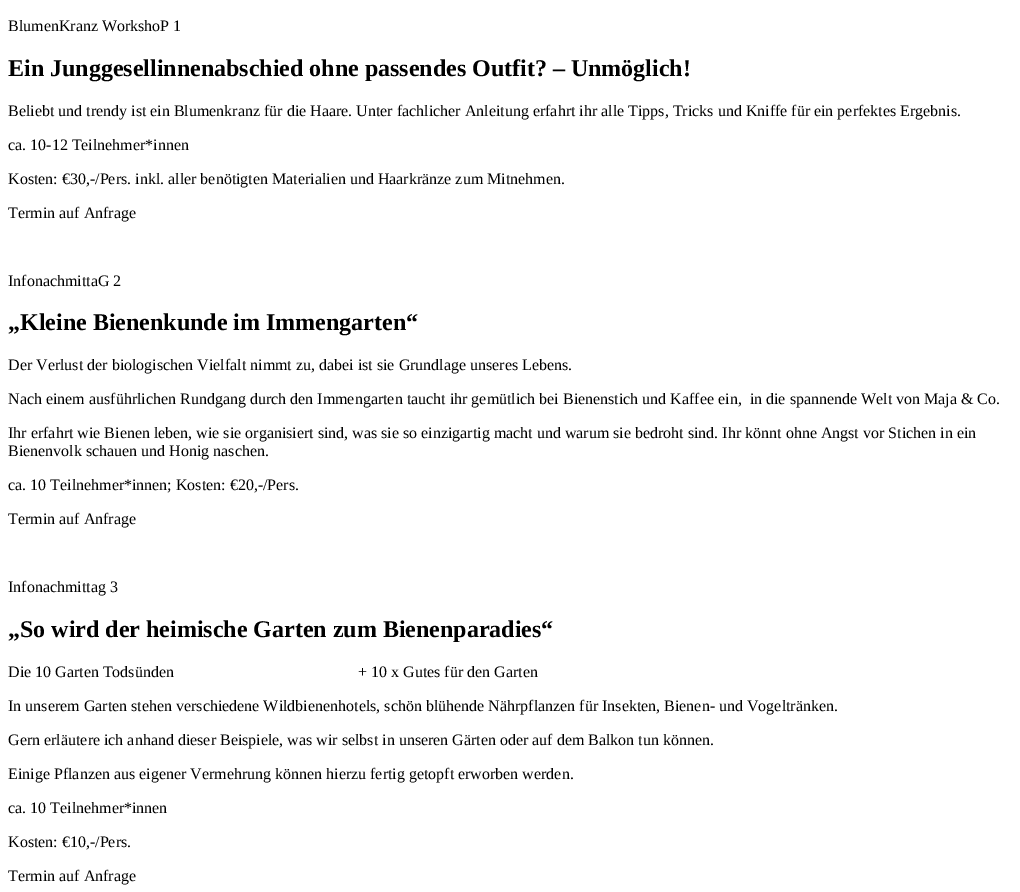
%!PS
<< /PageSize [1020 892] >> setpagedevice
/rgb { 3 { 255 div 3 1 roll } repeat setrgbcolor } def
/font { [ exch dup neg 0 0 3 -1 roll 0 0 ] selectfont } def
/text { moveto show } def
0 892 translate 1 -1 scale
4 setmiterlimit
255 255 255 rgb
0 0 1020 892 rectfill
/LiberationSerif-Regular 16 font
0 0 0 rgb
(BlumenKranz WorkshoP 1) 8 31 text
/LiberationSerif-Bold 24 font
(Ein Junggesellinnenabschied ohne passendes Outfit? – Unmöglich!) 8 76 text
/LiberationSerif-Regular 16 font
(Beliebt und trendy ist ein Blumenkranz für die Haare. Unter fachlicher Anleitung erfahrt ihr alle Tipps, Tricks und Kniffe für ein perfektes Ergebnis.) 8 116 text
(ca. 10-12 Teilnehmer*innen) 8 150 text
(Kosten: €30,-/Pers. inkl. aller benötigten Materialien und Haarkränze zum Mitnehmen.) 8 184 text
(Termin auf Anfrage) 8 218 text
(InfonachmittaG 2) 8 286 text
/LiberationSerif-Bold 24 font
(„Kleine Bienenkunde im Immengarten“) 8 330 text
/LiberationSerif-Regular 16 font
(Der Verlust der biologischen Vielfalt nimmt zu, dabei ist sie Grundlage unseres Lebens.) 8 370 text
(Nach einem ausführlichen Rundgang durch den Immengarten taucht ihr gemütlich bei Bienenstich und Kaffee ein,  in die spannende Welt von Maja & Co.) 8 404 text
(Ihr erfahrt wie Bienen leben, wie sie organisiert sind, was sie so einzigartig macht und warum sie bedroht sind. Ihr könnt ohne Angst vor Stichen in ein) 8 438 text
(Bienenvolk schauen und Honig naschen.) 8 456 text
(ca. 10 Teilnehmer*innen; Kosten: €20,-/Pers.) 8 490 text
(Termin auf Anfrage) 8 524 text
(Infonachmittag 3) 8 592 text
/LiberationSerif-Bold 24 font
(„So wird der heimische Garten zum Bienenparadies“) 8 637 text
/LiberationSerif-Regular 16 font
(Die 10 Garten Todsünden) 8 677 text
(+ 10 x Gutes für den Garten) 358 677 text
(In unserem Garten stehen verschiedene Wildbienenhotels, schön blühende Nährpflanzen für Insekten, Bienen- und Vogeltränken.) 8 711 text
(Gern erläutere ich anhand dieser Beispiele, was wir selbst in unseren Gärten oder auf dem Balkon tun können.) 8 745 text
(Einige Pflanzen aus eigener Vermehrung können hierzu fertig getopft erworben werden.) 8 779 text
(ca. 10 Teilnehmer*innen) 8 813 text
(Kosten: €10,-/Pers.) 8 847 text
(Termin auf Anfrage) 8 881 text
showpage
